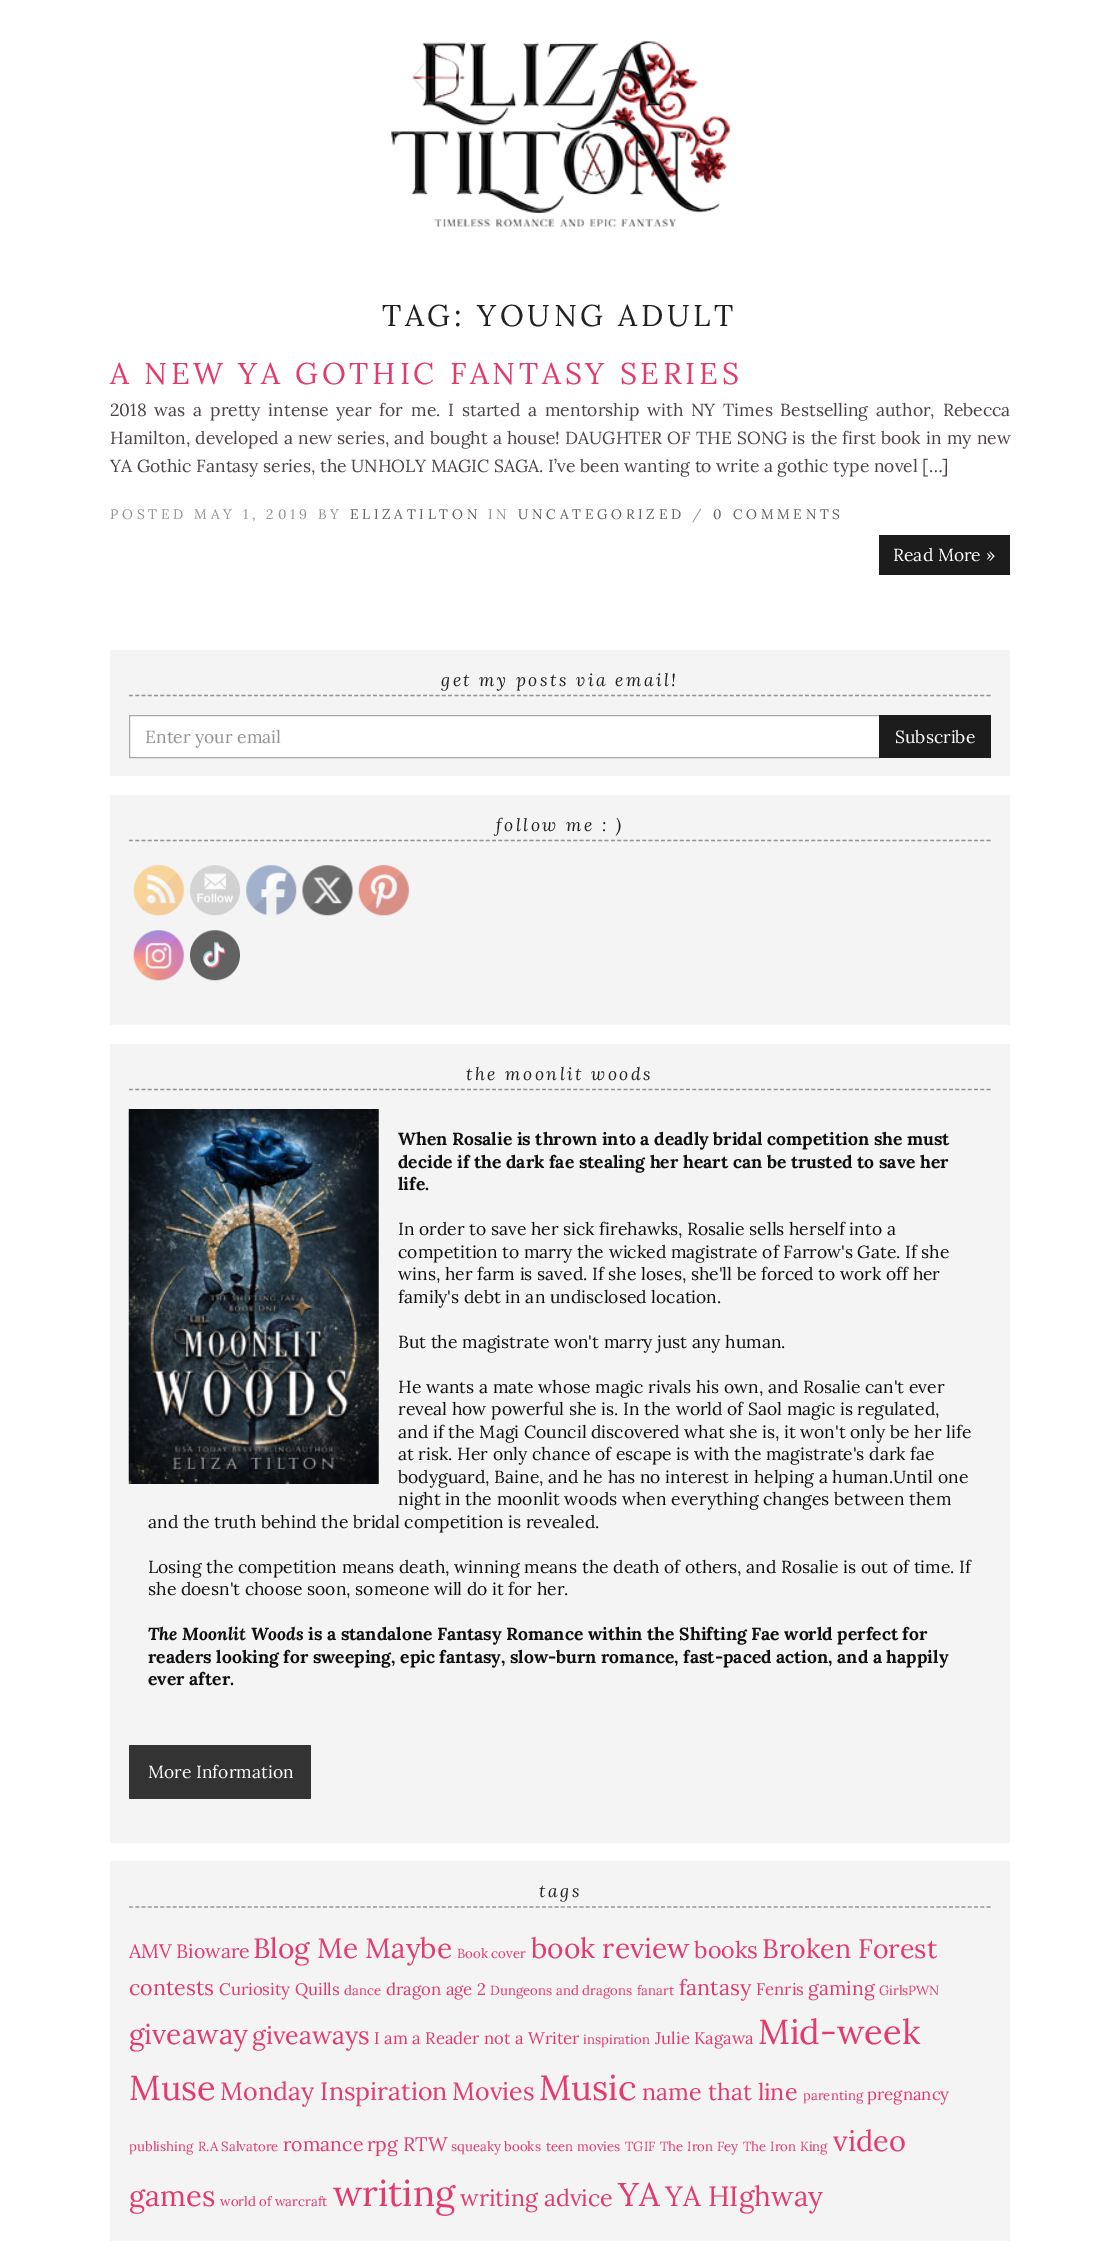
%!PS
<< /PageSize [1119 2252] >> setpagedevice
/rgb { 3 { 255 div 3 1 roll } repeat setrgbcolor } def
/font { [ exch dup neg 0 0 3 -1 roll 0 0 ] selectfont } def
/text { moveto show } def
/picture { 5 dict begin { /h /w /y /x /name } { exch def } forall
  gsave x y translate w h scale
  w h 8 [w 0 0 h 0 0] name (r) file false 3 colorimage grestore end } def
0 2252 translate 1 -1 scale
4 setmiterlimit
255 255 255 rgb
0 0 1119 2252 rectfill
(img_01.rgb) 391 41 340 186 picture
28 28 28 rgb
879 535 131 40 rectfill
244 244 244 rgb
110 650 900 126 rectfill
148 148 148 rgb
1.2 setlinewidth
[3.75 2.51] 0 setdash
129 695.5 moveto 862 0 rlineto stroke
255 255 255 rgb
129.5 715.5 moveto 750 0 rlineto 0 42 rlineto -750 0 rlineto closepath gsave fill grestore
169 169 169 rgb
1 setlinewidth
[] 0 setdash
stroke
28 28 28 rgb
879 715 112 43 rectfill
244 244 244 rgb
110 795 900 230 rectfill
148 148 148 rgb
1.2 setlinewidth
[3.75 2.51] 0 setdash
129 840.5 moveto 862 0 rlineto stroke
(img_02.rgb) 133 865 51 51 picture
(img_03.rgb) 190 865 50 51 picture
(img_04.rgb) 246 865 51 51 picture
(img_05.rgb) 302 865 51 51 picture
(img_06.rgb) 358 865 51 51 picture
(img_07.rgb) 133 930 51 51 picture
(img_08.rgb) 190 930 50 51 picture
244 244 244 rgb
110 1044 900 799 rectfill
148 148 148 rgb
129 1089.5 moveto 862 0 rlineto stroke
(img_09.rgb) 128 1109 251 375 picture
51 51 51 rgb
129 1745 182 54 rectfill
244 244 244 rgb
110 1861 900 380 rectfill
148 148 148 rgb
129 1907 moveto 862 0 rlineto stroke
/Lora-Regular 30 font
34 34 34 rgb
382 326 moveto 3.75 0 (TAG: YOUNG ADULT) ashow
228 59 110 rgb
110 384 moveto 3.75 0 (A NEW YA GOTHIC FANTASY SERIES) ashow
/Lora-Regular 17.5 font
78 67 68 rgb
110 416 moveto 3.25 0 32 (2018 was a pretty intense year for me. I started a mentorship with NY Times Bestselling author, Rebecca) widthshow
110 444 moveto 0.5 0 32 (Hamilton, developed a new series, and bought a house! DAUGHTER OF THE SONG is the first book in my new) widthshow
(YA Gothic Fantasy series, the UNHOLY MAGIC SAGA. I’ve been wanting to write a gothic type novel […]) 110 472 text
/Lora-Regular 13.75 font
148 148 148 rgb
110 519 moveto 3.75 0 (POSTED MAY 1, 2019 BY) ashow
96 96 96 rgb
350 519 moveto 3.75 0 (ELIZATILTON) ashow
148 148 148 rgb
488 519 moveto 3.75 0 (IN) ashow
96 96 96 rgb
518 519 moveto 3.75 0 (UNCATEGORIZED) ashow
148 148 148 rgb
692 519 moveto 3.75 0 (/) ashow
96 96 96 rgb
713 519 moveto 3.75 0 (0 COMMENTS) ashow
/Lora-Regular 17.5 font
255 255 255 rgb
(Read More ») 893 561 text
/Lora-Italic 17.5 font
34 34 34 rgb
441 686 moveto 2.5 0 (get my posts via email!) ashow
/Lora-Regular 17.5 font
148 148 148 rgb
(Enter your email) 145 743 text
255 255 255 rgb
(Subscribe) 895 743 text
/Lora-Italic 17.5 font
34 34 34 rgb
496 831 moveto 2.5 0 (follow me : \)) ashow
466 1080 moveto 2.5 0 (the moonlit woods) ashow
/Lora-Bold 17.5 font
15 17 17 rgb
(When Rosalie is thrown into a deadly bridal competition she must) 398 1145 text
(decide if the dark fae stealing her heart can be trusted to save her) 398 1168 text
(life.) 398 1190 text
/Lora-Regular 17.5 font
(In order to save her sick firehawks, Rosalie sells herself into a) 398 1235 text
(competition to marry the wicked magistrate of Farrow's Gate. If she) 398 1258 text
(wins, her farm is saved. If she loses, she'll be forced to work off her) 398 1280 text
(family's debt in an undisclosed location.) 398 1303 text
(But the magistrate won't marry just any human.) 398 1348 text
(He wants a mate whose magic rivals his own, and Rosalie can't ever) 398 1393 text
(reveal how powerful she is. In the world of Saol magic is regulated,) 398 1415 text
(and if the Magi Council discovered what she is, it won't only be her life) 398 1438 text
(at risk. Her only chance of escape is with the magistrate's dark fae) 398 1460 text
(bodyguard, Baine, and he has no interest in helping a human.Until one) 398 1483 text
(night in the moonlit woods when everything changes between them) 398 1505 text
(and the truth behind the bridal competition is revealed.) 148 1528 text
(Losing the competition means death, winning means the death of others, and Rosalie is out of time. If) 148 1573 text
(she doesn't choose soon, someone will do it for her.) 148 1595 text
/Lora-BoldItalic 17.5 font
(The Moonlit Woods) 148 1640 text
/Lora-Bold 17.5 font
(is a standalone Fantasy Romance within the Shifting Fae world perfect for) 308 1640 text
(readers looking for sweeping, epic fantasy, slow-burn romance, fast-paced action, and a happily) 148 1663 text
(ever after.) 148 1685 text
/Lora-Regular 17.5 font
255 255 255 rgb
(More Information) 148 1778 text
/Lora-Italic 17.5 font
34 34 34 rgb
539 1897 moveto 2.5 0 (tags) ashow
/Lora-Regular 19.5 font
228 59 110 rgb
(AMV) 129 1958 text
(Bioware) 176 1958 text
/Lora-Regular 28 font
(Blog Me Maybe) 253 1958 text
/Lora-Regular 13.25 font
(Book cover) 457 1958 text
/Lora-Regular 28 font
(book review) 531 1958 text
/Lora-Regular 23.25 font
(books) 694 1958 text
/Lora-Regular 26.75 font
(Broken Forest) 762 1958 text
/Lora-Regular 21.5 font
(contests) 129 1995 text
/Lora-Regular 16.75 font
(Curiosity Quills) 219 1995 text
/Lora-Regular 13.25 font
(dance) 344 1995 text
/Lora-Regular 16.75 font
(dragon age 2) 386 1995 text
/Lora-Regular 13.25 font
(Dungeons and dragons) 490 1995 text
(fanart) 637 1995 text
/Lora-Regular 21.5 font
(fantasy) 679 1995 text
/Lora-Regular 16.75 font
(Fenris) 756 1995 text
/Lora-Regular 19.5 font
(gaming) 808 1995 text
/Lora-Regular 13.25 font
(GirlsPWN) 879 1995 text
/Lora-Regular 28 font
(giveaway) 129 2044 text
/Lora-Regular 25 font
(giveaways) 252 2044 text
/Lora-Regular 16.75 font
(I am a Reader not a Writer) 374 2044 text
/Lora-Regular 13.25 font
(inspiration) 583 2044 text
/Lora-Regular 16.75 font
(Julie Kagawa) 655 2044 text
/Lora-Regular 34.5 font
(Mid-week) 758 2044 text
(Muse) 129 2100 text
/Lora-Regular 25 font
(Monday Inspiration) 220 2100 text
(Movies) 452 2100 text
/Lora-Regular 35 font
(Music) 539 2100 text
/Lora-Regular 23.25 font
(name that line) 642 2100 text
/Lora-Regular 13.25 font
(parenting) 803 2100 text
/Lora-Regular 16.75 font
(pregnancy) 867 2100 text
/Lora-Regular 13.25 font
(publishing) 129 2151 text
(R.A Salvatore) 198 2151 text
/Lora-Regular 19.5 font
(romance) 283 2151 text
(rpg) 367 2151 text
(RTW) 403 2151 text
/Lora-Regular 13.25 font
(squeaky books) 451 2151 text
(teen movies) 546 2151 text
(TGIF) 625 2151 text
(The Iron Fey) 660 2151 text
(The Iron King) 743 2151 text
/Lora-Regular 29 font
(video) 833 2151 text
(games) 129 2206 text
/Lora-Regular 13.25 font
(world of warcraft) 220 2206 text
/Lora-Regular 36.5 font
(writing) 333 2206 text
/Lora-Regular 23.25 font
(writing advice) 460 2206 text
/Lora-Regular 33 font
(YA) 618 2206 text
/Lora-Regular 28 font
(YA HIghway) 665 2206 text
showpage
